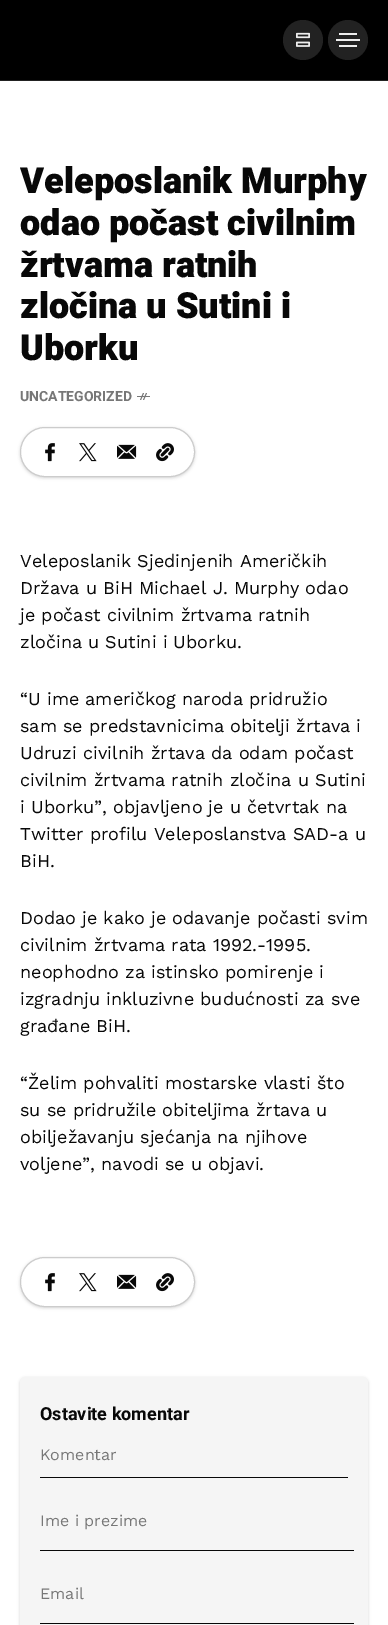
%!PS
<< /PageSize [388 1625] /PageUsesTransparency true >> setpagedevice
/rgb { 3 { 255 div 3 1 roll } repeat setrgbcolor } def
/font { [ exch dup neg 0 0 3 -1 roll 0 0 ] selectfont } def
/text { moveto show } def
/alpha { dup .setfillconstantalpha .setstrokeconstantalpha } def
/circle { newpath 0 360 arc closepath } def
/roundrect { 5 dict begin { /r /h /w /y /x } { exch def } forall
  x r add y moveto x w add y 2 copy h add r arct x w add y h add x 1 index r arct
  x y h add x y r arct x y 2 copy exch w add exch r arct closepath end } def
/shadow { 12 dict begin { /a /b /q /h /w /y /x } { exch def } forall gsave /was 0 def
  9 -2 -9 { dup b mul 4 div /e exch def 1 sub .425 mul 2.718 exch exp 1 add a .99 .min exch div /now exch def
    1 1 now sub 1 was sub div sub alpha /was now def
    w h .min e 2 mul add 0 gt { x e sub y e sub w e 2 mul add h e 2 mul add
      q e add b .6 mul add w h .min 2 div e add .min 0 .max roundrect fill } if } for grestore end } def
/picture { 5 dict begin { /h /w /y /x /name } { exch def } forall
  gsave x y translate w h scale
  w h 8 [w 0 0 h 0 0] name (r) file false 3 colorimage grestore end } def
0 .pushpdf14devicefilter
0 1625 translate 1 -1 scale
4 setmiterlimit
255 255 255 rgb
0 0 388 1625 rectfill
0 0 0 rgb
0 0 388 80 rectfill
34 34 34 rgb
0 80 388 1 rectfill
303 40 20 circle fill
(img_01.rgb) 296 32 14 15 picture
348 40 20 circle fill
238 238 238 rgb
336 39 24 2 rectfill
339 33 18 2 rectfill
339 45 18 2 rectfill
119 119 119 rgb
137 396 13 1 rectfill
146 393 moveto 1 0 rlineto -3 7 rlineto -1 0 rlineto closepath fill
143 393 moveto 1 0 rlineto -3 7 rlineto -1 0 rlineto closepath fill
gsave
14 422 moveto 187 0 rlineto 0 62 rlineto -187 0 rlineto closepath 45 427 moveto 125 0 rlineto 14 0 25 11 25 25 rcurveto 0 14 -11 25 -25 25 rcurveto -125 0 rlineto -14 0 -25 -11 -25 -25 rcurveto 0 -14 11 -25 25 -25 rcurveto closepath eoclip newpath
0 0 0 rgb
20 428 175 50 25 1.5 0.15 shadow
grestore
204 204 204 rgb
20.5 427.5 174 49 24.5 roundrect stroke
(img_02.rgb) 45 443 10 19 picture
(img_03.rgb) 79 443 18 19 picture
(img_04.rgb) 117 444 20 15 picture
(img_05.rgb) 156 443 18 19 picture
gsave
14 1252 moveto 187 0 rlineto 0 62 rlineto -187 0 rlineto closepath 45 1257 moveto 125 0 rlineto 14 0 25 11 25 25 rcurveto 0 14 -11 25 -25 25 rcurveto -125 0 rlineto -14 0 -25 -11 -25 -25 rcurveto 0 -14 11 -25 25 -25 rcurveto closepath eoclip newpath
0 0 0 rgb
20 1258 175 50 25 1.5 0.15 shadow
grestore
20.5 1257.5 174 49 24.5 roundrect stroke
(img_02.rgb) 45 1273 10 19 picture
(img_03.rgb) 79 1273 18 19 picture
(img_04.rgb) 117 1274 20 15 picture
(img_05.rgb) 156 1273 18 19 picture
0 0 0 rgb
20 1378 348 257 5 1.5 0.15 shadow
245 245 245 rgb
20 1377 348 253 5 roundrect fill
8 8 8 rgb
40 1477 308 1 rectfill
40 1550 314 1 rectfill
40 1623 314 1 rectfill
/Heebo-Black 36 font
(Veleposlanik Murphy) 20 193 text
(odao počast civilnim) 20 235 text
(žrtvama ratnih) 20 277 text
(zločina u Sutini i) 20 318 text
(Uborku) 20 360 text
/Heebo-Bold 14 font
119 119 119 rgb
(UNCATEGORIZED) 20 401 text
/WorkSans-Regular 18 font
8 8 8 rgb
(Veleposlanik Sjedinjenih Američkih) 20 567 text
(Država u BiH Michael J. Murphy odao) 20 594 text
(je počast civilnim žrtvama ratnih) 20 621 text
(zločina u Sutini i Uborku.) 20 648 text
(“U ime američkog naroda pridružio) 20 705 text
(sam se predstavnicima obitelji žrtava i) 20 732 text
(Udruzi civilnih žrtava da odam počast) 20 759 text
(civilnim žrtvama ratnih zločina u Sutini) 20 786 text
(i Uborku”, objavljeno je u četvrtak na) 20 813 text
(Twitter profilu Veleposlanstva SAD-a u) 20 840 text
(BiH.) 20 867 text
(Dodao je kako je odavanje počasti svim) 20 924 text
(civilnim žrtvama rata 1992.-1995.) 20 951 text
(neophodno za istinsko pomirenje i) 20 978 text
(izgradnju inkluzivne budućnosti za sve) 20 1005 text
(građane BiH.) 20 1032 text
(“Želim pohvaliti mostarske vlasti što) 20 1089 text
(su se pridružile obiteljima žrtava u) 20 1116 text
(obilježavanju sjećanja na njihove) 20 1143 text
(voljene”, navodi se u objavi.) 20 1170 text
/Heebo-Bold 18 font
(Ostavite komentar) 40 1420 text
/WorkSans-Regular 16 font
119 119 119 rgb
(Komentar) 40 1460 text
(Ime i prezime) 40 1526 text
(Email) 40 1599 text
.poppdf14devicefilter showpage
